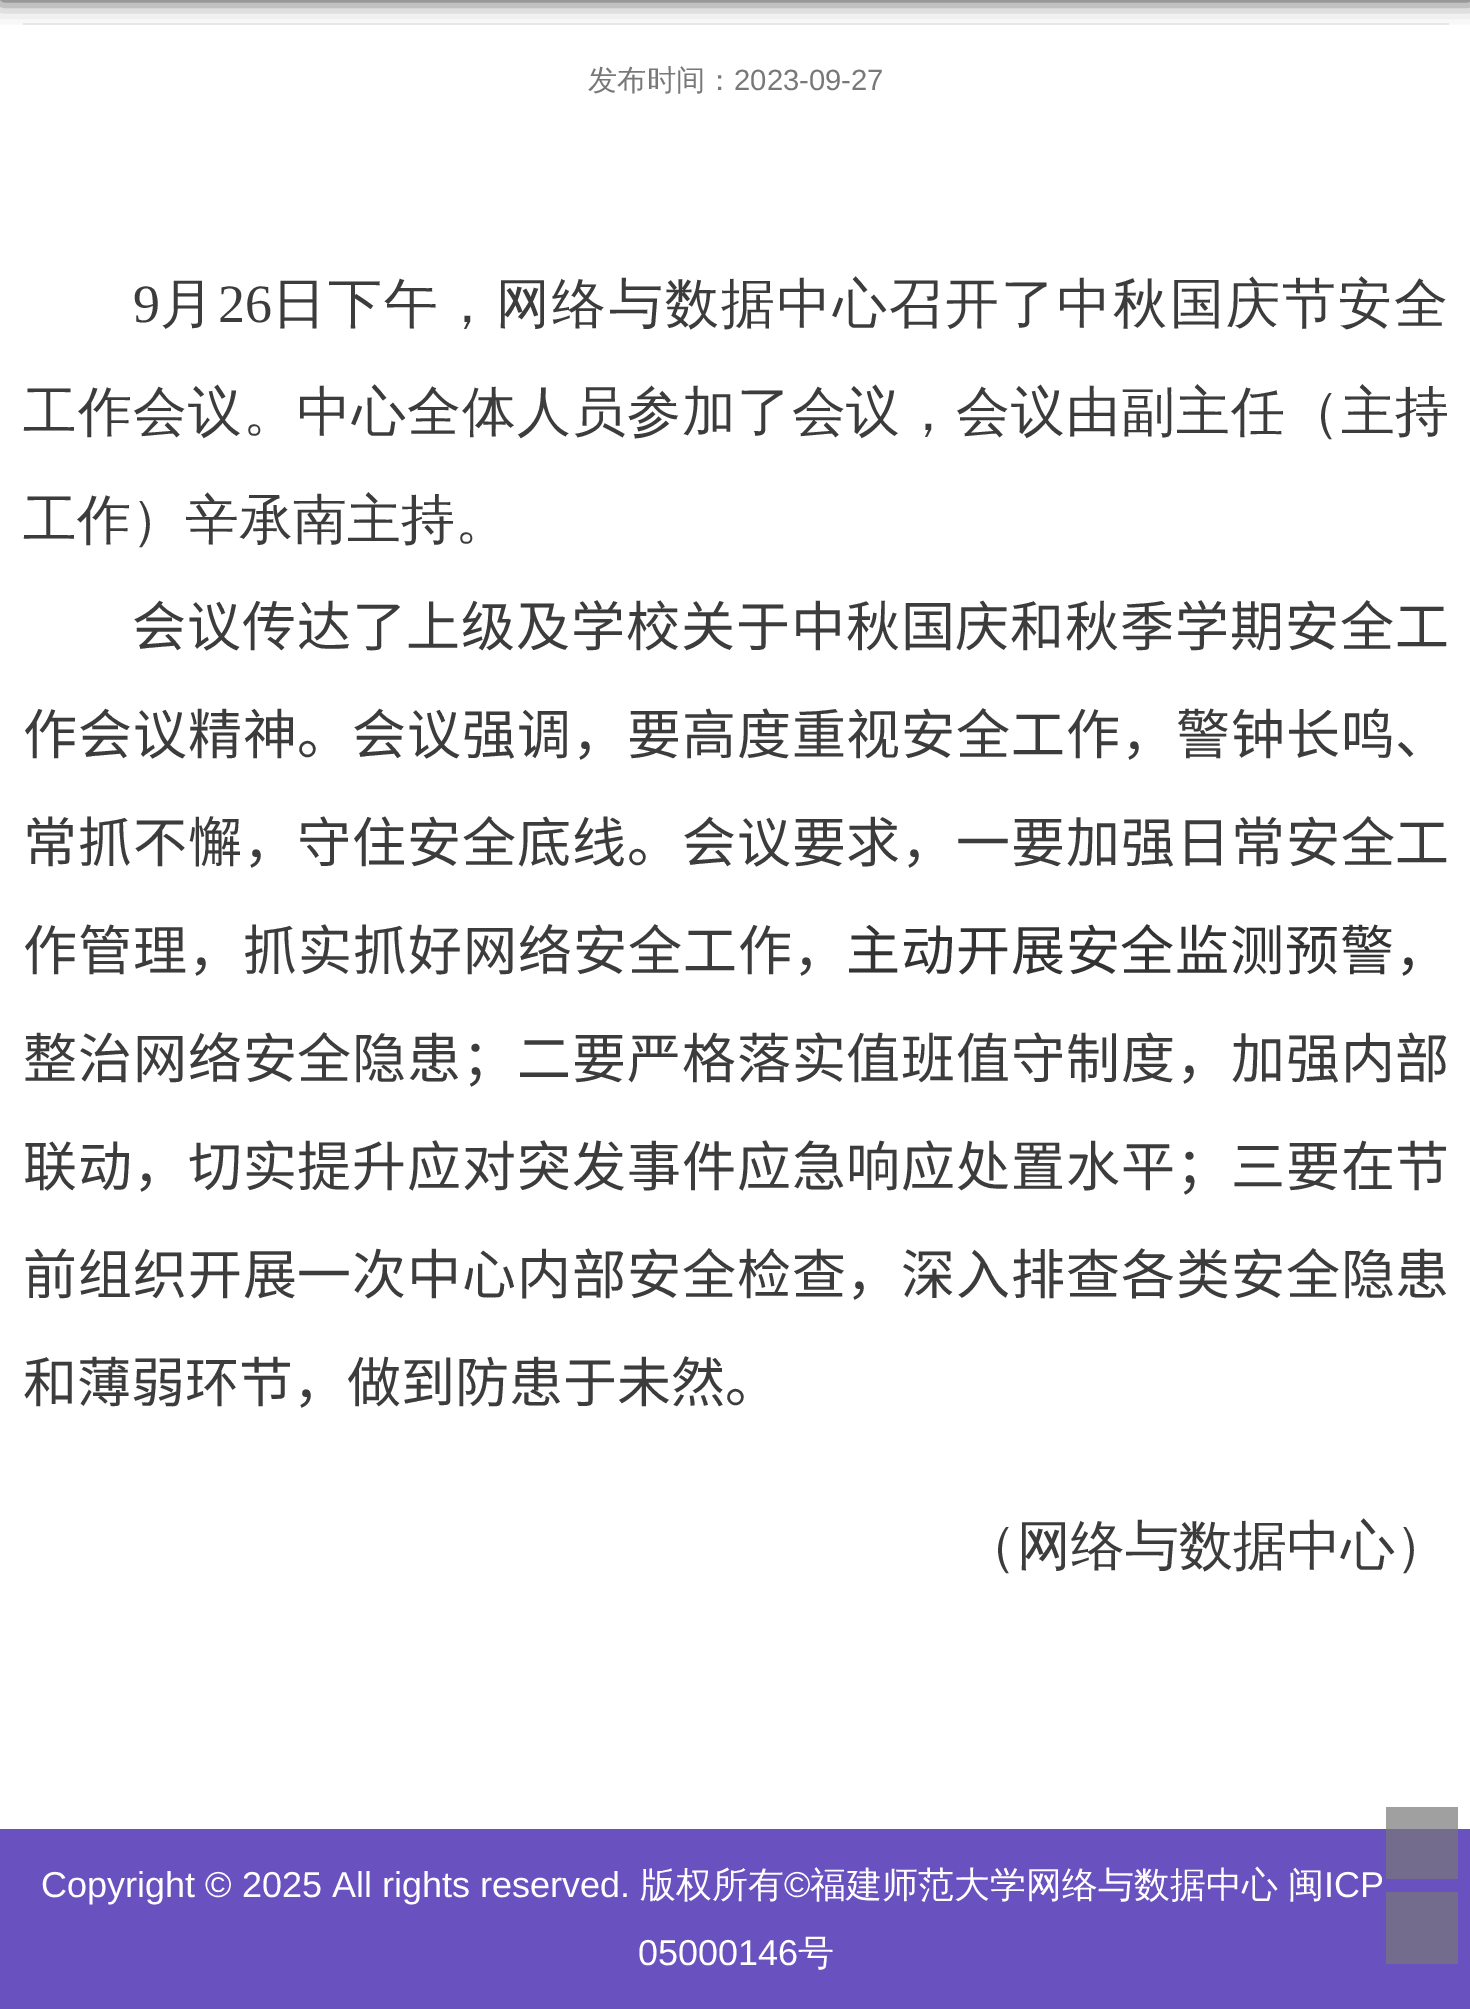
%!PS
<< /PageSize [1470 2009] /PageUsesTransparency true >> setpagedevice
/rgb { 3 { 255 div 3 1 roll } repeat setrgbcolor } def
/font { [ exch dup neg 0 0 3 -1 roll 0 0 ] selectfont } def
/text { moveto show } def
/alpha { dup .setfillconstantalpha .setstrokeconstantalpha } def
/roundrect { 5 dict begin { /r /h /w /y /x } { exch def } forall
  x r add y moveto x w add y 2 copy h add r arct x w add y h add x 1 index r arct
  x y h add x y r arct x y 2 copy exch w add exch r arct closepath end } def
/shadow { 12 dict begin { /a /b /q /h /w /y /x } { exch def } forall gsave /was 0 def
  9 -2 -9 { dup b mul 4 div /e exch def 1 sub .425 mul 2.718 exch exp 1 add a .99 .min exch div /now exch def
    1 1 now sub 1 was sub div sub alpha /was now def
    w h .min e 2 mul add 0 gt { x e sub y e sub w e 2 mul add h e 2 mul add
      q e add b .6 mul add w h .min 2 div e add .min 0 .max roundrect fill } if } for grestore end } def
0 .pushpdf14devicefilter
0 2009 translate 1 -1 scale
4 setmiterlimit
255 255 255 rgb
0 0 1470 2009 rectfill
236 236 236 rgb
23 23 1426 2 rectfill
0 0 0 rgb
0 -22 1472 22 0 11 0.8 shadow
105 81 191 rgb
0 1829 1470 180 rectfill
0.7 alpha
119 119 119 rgb
1386 1807 72 72 rectfill
1386 1892 72 72 rectfill
/WenQuanYiZenHei-Medium 29.25 font
1 alpha
120 120 120 rgb
(发布时间：) 588 90 text
/LiberationSans-Regular 29.25 font
(2023-09-27) 734 90 text
/LiberationSerif-Regular 54 font
60 60 60 rgb
(9) 133 322 text
/WenQuanYiZenHei-Medium 54 font
(月) 160 322 text
/LiberationSerif-Regular 54 font
(26) 218 322 text
/WenQuanYiZenHei-Medium 54 font
272 322 moveto 2.1 0 (日下午，网络与数据中心召开了中秋国庆节安全) ashow
23 430 moveto 0.9 0 (工作会议。中心全体人员参加了会议，会议由副主任（主持) ashow
(工作）辛承南主持。) 23 538 text
/NotoSansCJKSC-Regular 54 font
132 646 moveto 0.9 0 (会议传达了上级及学校关于中秋国庆和秋季学期安全工) ashow
23 754 moveto 0.9 0 (作会议精神。会议强调，要高度重视安全工作，警钟长鸣、) ashow
23 862 moveto 0.9 0 (常抓不懈，守住安全底线。会议要求，一要加强日常安全工) ashow
23 970 moveto 1 0 (作管理，抓实抓好网络安全工作，) ashow
51 51 51 rgb
846 970 moveto 0.9 0 (主动开展安全监测预警，) ashow
60 60 60 rgb
23 1078 moveto 0.9 0 (整治网络安全隐患；二要严格落实值班值守制度，加强内部) ashow
23 1186 moveto 0.9 0 (联动，切实提升应对突发事件应急响应处置水平；三要在节) ashow
23 1294 moveto 0.9 0 (前组织开展一次中心内部安全检查，深入排查各类安全隐患) ashow
(和薄弱环节，做到防患于未然。) 23 1402 text
/WenQuanYiZenHei-Medium 54 font
(（网络与数据中心）) 963 1564 text
/LiberationSans-Regular 36 font
255 255 255 rgb
(Copyright © 2025 All rights reserved.) 41 1897 text
/WenQuanYiZenHei-Medium 36 font
(版权所有) 640 1897 text
/LiberationSans-Regular 36 font
(©) 784 1897 text
/WenQuanYiZenHei-Medium 36 font
(福建师范大学网络与数据中心) 810 1897 text
(闽) 1288 1897 text
/LiberationSans-Regular 36 font
(ICP) 1324 1897 text
(05000146) 638 1965 text
/WenQuanYiZenHei-Medium 36 font
(号) 798 1965 text
.poppdf14devicefilter showpage
